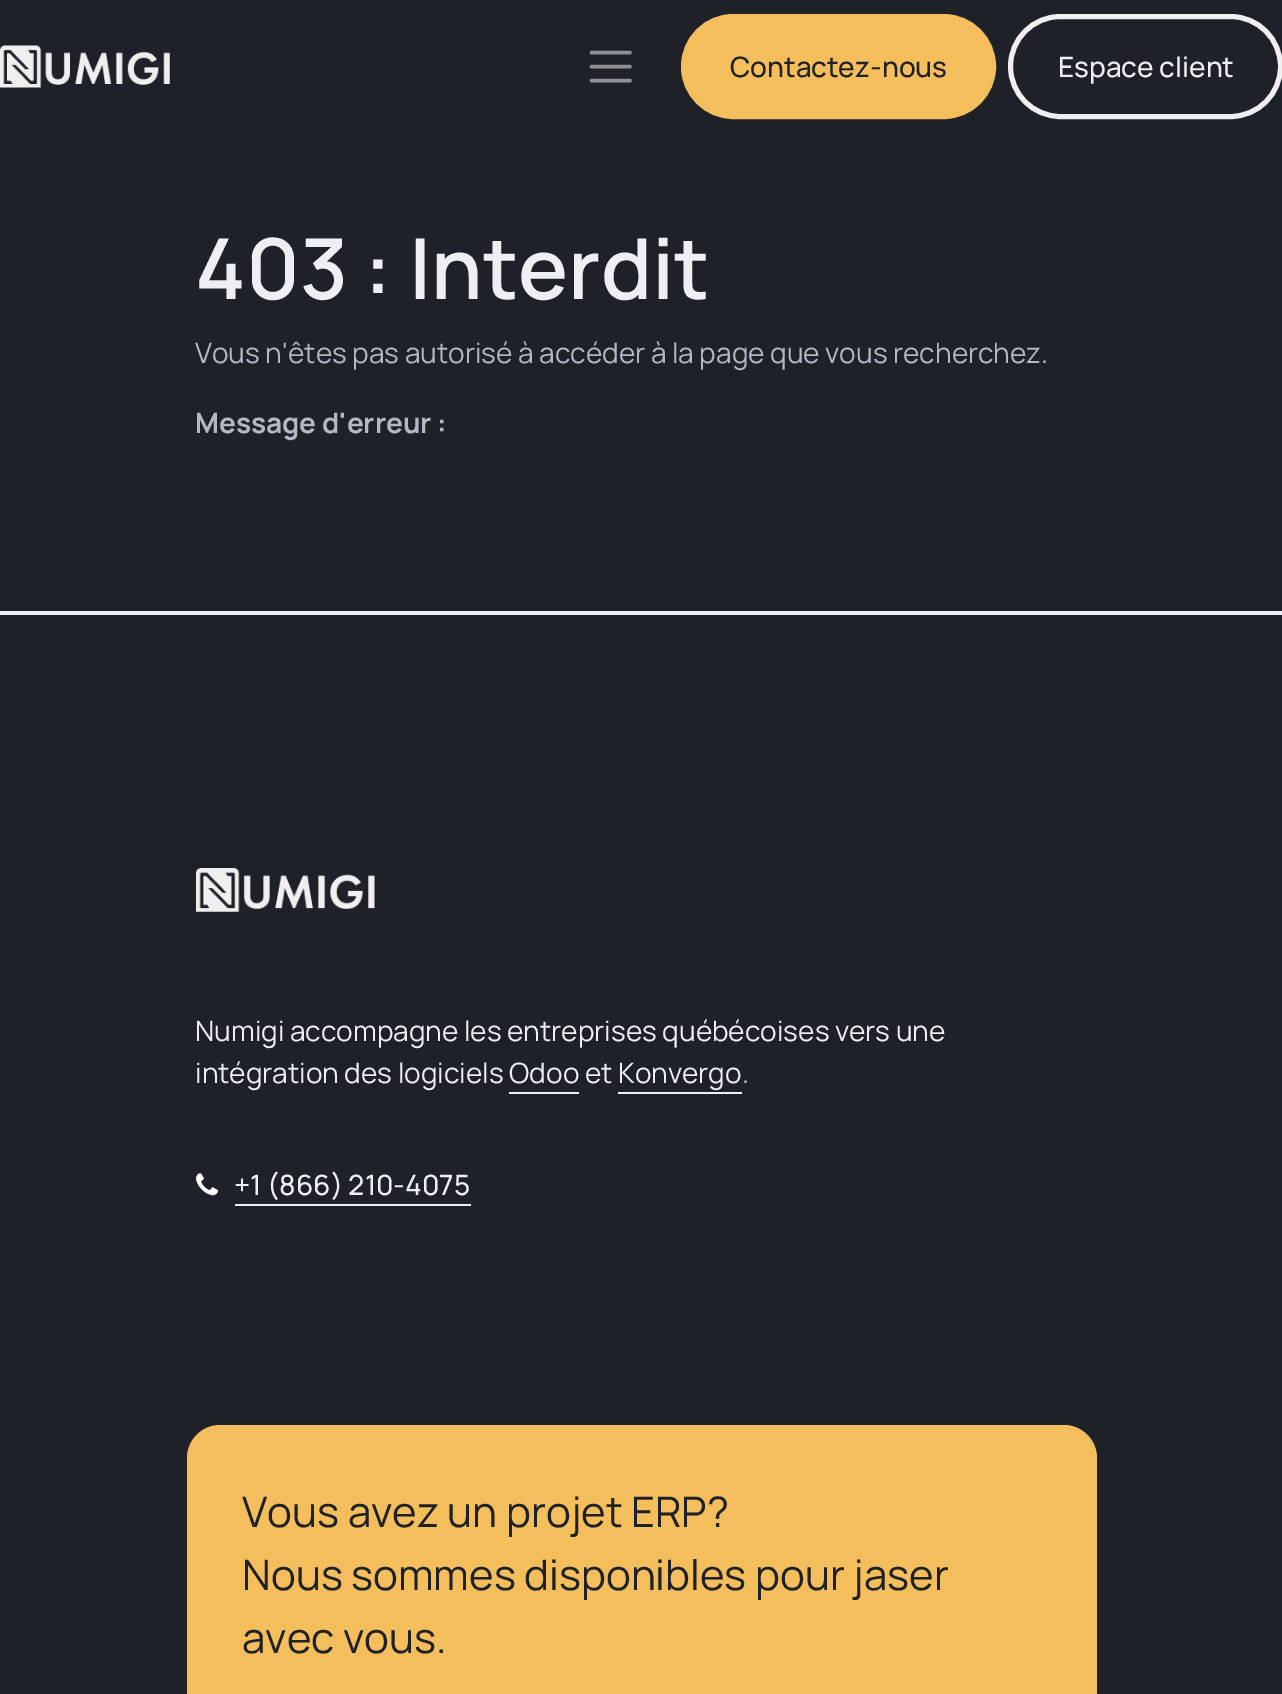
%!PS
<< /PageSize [1282 1694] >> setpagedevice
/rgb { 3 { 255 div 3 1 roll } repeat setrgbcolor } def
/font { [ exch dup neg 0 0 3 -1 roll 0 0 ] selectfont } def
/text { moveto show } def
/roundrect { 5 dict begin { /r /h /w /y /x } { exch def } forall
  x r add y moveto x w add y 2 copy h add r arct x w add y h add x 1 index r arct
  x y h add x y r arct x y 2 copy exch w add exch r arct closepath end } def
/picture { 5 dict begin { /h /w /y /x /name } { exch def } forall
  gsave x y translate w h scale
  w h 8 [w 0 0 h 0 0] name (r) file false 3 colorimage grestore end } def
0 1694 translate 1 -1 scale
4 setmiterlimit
31 33 40 rgb
0 0 1282 1694 rectfill
(img_01.rgb) 0 45 170 43 picture
143 144 148 rgb
3.5 setlinewidth
1 setlinecap
591.5 52.5 moveto 38.5 0 rlineto 591.5 66.5 moveto 38.5 0 rlineto 591.5 80.5 moveto 38.5 0 rlineto stroke
245 190 92 rgb
683.5 16.5 310 100 50 roundrect gsave fill grestore
5 setlinewidth
0 setlinecap
stroke
239 239 239 rgb
1010.5 16.5 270 100 50 roundrect stroke
238 239 242 rgb
0 611 1282 4 rectfill
(img_02.rgb) 196 868 179 44 picture
509 1092 70 2 rectfill
618 1092 124 2 rectfill
(img_03.rgb) 196 1173 22 23 picture
235 1204 236 2 rectfill
245 190 92 rgb
220 1425 moveto 844 0 rlineto 18 0 33 15 33 33 rcurveto 0 236 rlineto -910 0 rlineto 0 -236 rlineto 0 -18 15 -33 33 -33 rcurveto closepath fill
/Manrope-Medium 28 font
31 33 40 rgb
(Contactez-nous) 730 77 text
238 239 242 rgb
(Espace client) 1058 77 text
/Manrope-SemiBold 84 font
(403 : Interdit) 195 299 text
/Manrope-Regular 28 font
180 184 197 rgb
(Vous n'êtes pas autorisé à accéder à la page que vous recherchez.) 195 363 text
/Manrope-Bold 28 font
(Message d'erreur :) 195 433 text
/Manrope-Regular 28 font
238 239 242 rgb
(Numigi accompagne les entreprises québécoises vers une) 195 1041 text
(intégration des logiciels Odoo et Konvergo) 195 1083 text
180 184 197 rgb
(.) 742 1083 text
/Manrope-Medium 28 font
238 239 242 rgb
(+1 \(866\) 210-4075) 234 1195 text
/Manrope-Regular 42 font
31 33 40 rgb
(Vous avez un projet ERP?) 242 1527 text
(Nous sommes disponibles pour jaser) 242 1590 text
(avec vous.) 242 1653 text
showpage
